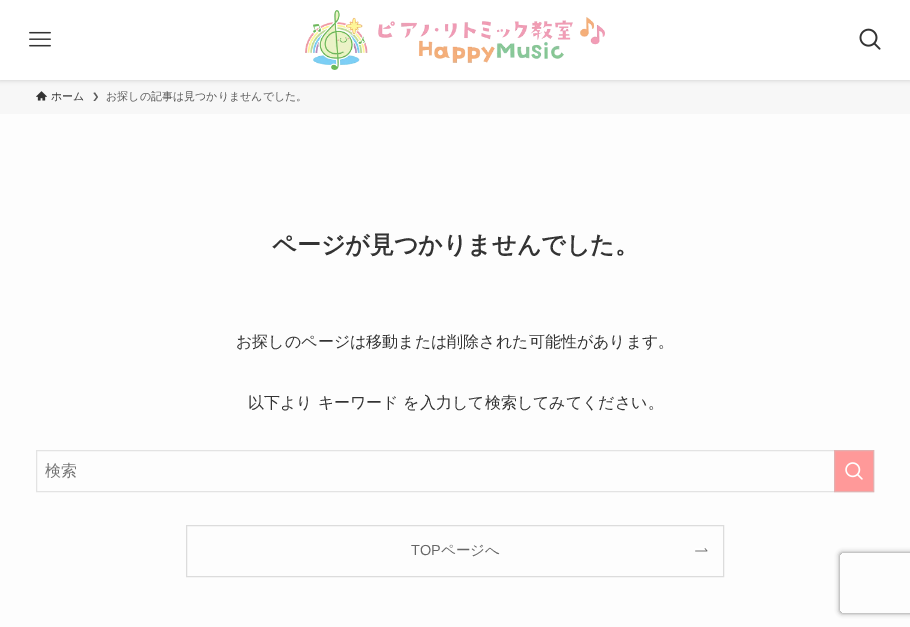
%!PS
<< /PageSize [910 627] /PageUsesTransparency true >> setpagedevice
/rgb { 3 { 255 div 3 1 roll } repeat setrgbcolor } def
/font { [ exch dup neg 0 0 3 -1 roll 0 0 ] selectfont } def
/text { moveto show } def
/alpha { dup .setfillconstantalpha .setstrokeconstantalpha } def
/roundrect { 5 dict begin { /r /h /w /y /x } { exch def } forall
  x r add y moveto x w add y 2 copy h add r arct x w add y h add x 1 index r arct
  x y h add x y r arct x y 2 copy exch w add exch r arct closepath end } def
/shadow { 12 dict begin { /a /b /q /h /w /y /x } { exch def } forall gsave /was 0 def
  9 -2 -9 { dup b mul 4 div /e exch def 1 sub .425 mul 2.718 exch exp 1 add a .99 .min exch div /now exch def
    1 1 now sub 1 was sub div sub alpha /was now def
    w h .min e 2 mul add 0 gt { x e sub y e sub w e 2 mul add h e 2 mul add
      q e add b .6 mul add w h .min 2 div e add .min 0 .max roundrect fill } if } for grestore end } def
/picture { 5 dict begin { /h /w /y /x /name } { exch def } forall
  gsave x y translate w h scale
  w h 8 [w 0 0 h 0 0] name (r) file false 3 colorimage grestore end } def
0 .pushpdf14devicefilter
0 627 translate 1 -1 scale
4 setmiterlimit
253 253 253 rgb
0 0 910 627 rectfill
247 247 247 rgb
0 80 910 34 rectfill
0 0 0 rgb
0 1 910 80 0 2 0.12 shadow
255 255 255 rgb
0 0 910 80 rectfill
(img_01.rgb) 29 31 22 16 picture
(img_02.rgb) 305 10 300 60 picture
(img_03.rgb) 859 28 22 22 picture
(img_04.rgb) 36 91 11 10 picture
90 90 90 rgb
95 92.5 moveto -1.5 0.5 rlineto 3 4 rlineto -3 4 rlineto 1.5 0 rlineto 3 -4 rlineto closepath fill
227 227 227 rgb
36.5 450.5 837 41 rectstroke
255 153 153 rgb
834.5 450.5 moveto 39 0 rlineto 0 41 rlineto -39 0 rlineto closepath gsave fill grestore
227 176 176 rgb
stroke
(img_05.rgb) 845 462 18 18 picture
220 220 220 rgb
186.5 525.5 537 51 rectstroke
(img_06.rgb) 695 548 13 4 picture
gsave
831 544 moveto 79 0 rlineto 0 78 rlineto -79 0 rlineto closepath 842 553 moveto 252 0 rlineto 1 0 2 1 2 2 rcurveto 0 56 rlineto 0 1 -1 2 -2 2 rcurveto -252 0 rlineto -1 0 -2 -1 -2 -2 rcurveto 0 -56 rlineto 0 -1 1 -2 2 -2 rcurveto closepath eoclip newpath
128 128 128 rgb
840 553 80 60 2 2.5 1 shadow
grestore
/WenQuanYiZenHei-Medium 11 font
51 51 51 rgb
(ホーム) 51 100 text
90 90 90 rgb
(お探しの記事は見つかりませんでした。) 106 100 text
/WenQuanYiZenHei-Bold 24 font
51 51 51 rgb
(ページが見つかりませんでした。) 272 253 text
/WenQuanYiZenHei-Medium 16 font
(お探しのページは移動または削除された可能性があります。) 236 347 text
(以下より キーワード を入力して検索してみてください。) 248 408 text
117 117 117 rgb
(検索) 45 476 text
/LiberationSans-Regular 14.5 font
102 102 102 rgb
(TOP) 411 555 text
/WenQuanYiZenHei-Medium 14.5 font
(ページへ) 441 555 text
.poppdf14devicefilter showpage
